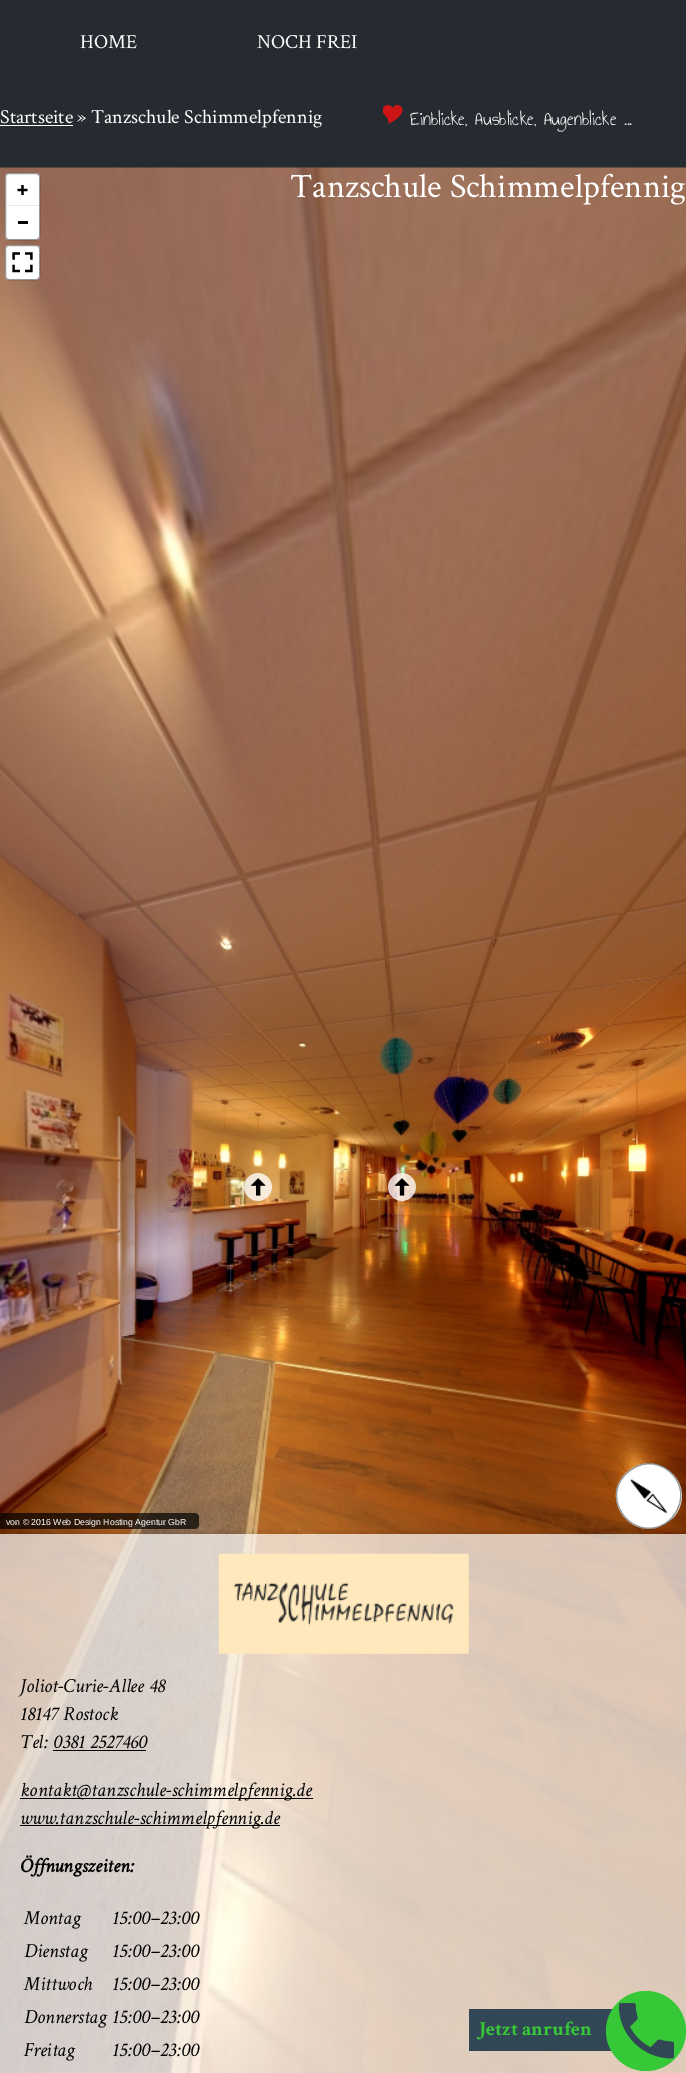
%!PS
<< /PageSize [686 2073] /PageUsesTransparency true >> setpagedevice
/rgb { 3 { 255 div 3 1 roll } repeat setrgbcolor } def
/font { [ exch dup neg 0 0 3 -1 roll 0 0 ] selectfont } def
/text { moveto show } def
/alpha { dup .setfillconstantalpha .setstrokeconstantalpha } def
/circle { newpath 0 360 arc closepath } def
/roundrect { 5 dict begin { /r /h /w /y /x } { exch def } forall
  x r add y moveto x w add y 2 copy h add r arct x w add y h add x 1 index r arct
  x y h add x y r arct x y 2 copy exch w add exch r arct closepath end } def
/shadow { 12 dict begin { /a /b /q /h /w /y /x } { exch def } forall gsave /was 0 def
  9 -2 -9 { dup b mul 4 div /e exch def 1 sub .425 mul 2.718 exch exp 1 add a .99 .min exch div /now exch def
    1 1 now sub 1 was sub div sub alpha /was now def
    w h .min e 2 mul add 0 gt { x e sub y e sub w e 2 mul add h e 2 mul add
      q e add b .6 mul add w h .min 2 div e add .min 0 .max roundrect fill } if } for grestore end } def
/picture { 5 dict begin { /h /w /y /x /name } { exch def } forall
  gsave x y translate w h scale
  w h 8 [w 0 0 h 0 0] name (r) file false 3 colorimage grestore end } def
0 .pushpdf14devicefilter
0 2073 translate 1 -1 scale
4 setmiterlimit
37 43 48 rgb
0 0 686 2073 rectfill
255 255 255 rgb
0 125 73 1 rectfill
(img_01.rgb) 383 105 20 19 picture
(img_02.rgb) 0 167 686 1906 picture
5 173 35 67 4 roundrect fill
0.4 alpha
0 0 0 rgb
5.5 173.5 34 66 3.5 roundrect stroke
1 alpha
(img_03.rgb) 17 185 11 10 picture
18 221 10 3 rectfill
230 230 230 rgb
6 205 33 1 rectfill
255 255 255 rgb
5 245 35 35 4 roundrect fill
(img_04.rgb) 12 252 21 21 picture
0.4 alpha
0 0 0 rgb
5.5 245.5 34 34 3.5 roundrect stroke
gsave
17 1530 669 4 rectclip
1 alpha
19 1540 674 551 0 6 0.5 shadow
grestore
0.7 alpha
0 1513 moveto 195 0 rlineto 2 0 4 2 4 4 rcurveto 0 8 rlineto 0 2 -2 4 -4 4 rcurveto -195 0 rlineto closepath fill
1 alpha
255 255 255 rgb
624 1475 moveto 29 -32 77 8 50 42 rcurveto -5 5 -11 9 -18 11 rcurveto -30 7 -53 -30 -32 -53 rcurveto closepath fill
(img_05.rgb) 630 1479 38 35 picture
0.4 alpha
0 0 0 rgb
1.3 setlinewidth
624.5 1475.5 moveto 29 -32 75 7.5 48.5 41 rcurveto -4 5.5 -10.5 9.5 -17 11 rcurveto -29 7 -52.5 -29.5 -31.5 -52 rcurveto closepath stroke
0.7 alpha
255 255 255 rgb
0 1534 686 539 rectfill
1 alpha
(img_06.rgb) 218 1553 251 101 picture
0 0 0 rgb
53 1750 93 1 rectfill
20 1798 293 1 rectfill
20 1825 260 1 rectfill
(img_07.rgb) 244 1173 28 28 picture
(img_08.rgb) 388 1173 28 28 picture
49 71 85 rgb
469 2009 144 42 rectfill
55 200 55 rgb
646 2031 40 circle fill
(img_09.rgb) 619 2003 55 56 picture
/CrimsonText-Regular 20 font
255 255 255 rgb
(HOME) 80 48 text
(NOCH FREI) 257 48 text
(Startseite » Tanzschule Schimmelpfennig) 0 123 text
/AnnieUseYourTelescope-Regular 20 font
(Einblicke, Ausblicke, Augenblicke ...) 410 125 text
/CrimsonText-Regular 34.25 font
(Tanzschule Schimmelpfennig) 290 197 text
/LiberationSans-Regular 8.75 font
(von © 2016 Web Design Hosting Agentur GbR) 6 1525 text
/CrimsonText-Italic 20 font
0 0 0 rgb
(Joliot-Curie-Allee 48) 20 1692 text
(18147 Rostock) 20 1720 text
(Tel: 0381 2527460) 20 1748 text
(kontakt@tanzschule-schimmelpfennig.de) 20 1796 text
(www.tanzschule-schimmelpfennig.de) 20 1824 text
/CrimsonText-BoldItalic 20 font
(Öffnungszeiten:) 20 1872 text
/CrimsonText-Italic 20 font
(Montag) 24 1924 text
(15:00–23:00) 112 1924 text
(Dienstag) 24 1957 text
(15:00–23:00) 112 1957 text
(Mittwoch) 24 1990 text
(15:00–23:00) 112 1990 text
(Donnerstag) 24 2023 text
(15:00–23:00) 112 2023 text
(Freitag) 24 2056 text
(15:00–23:00) 112 2056 text
/CrimsonText-Bold 20 font
55 200 55 rgb
(Jetzt anrufen) 479 2035 text
.poppdf14devicefilter showpage
